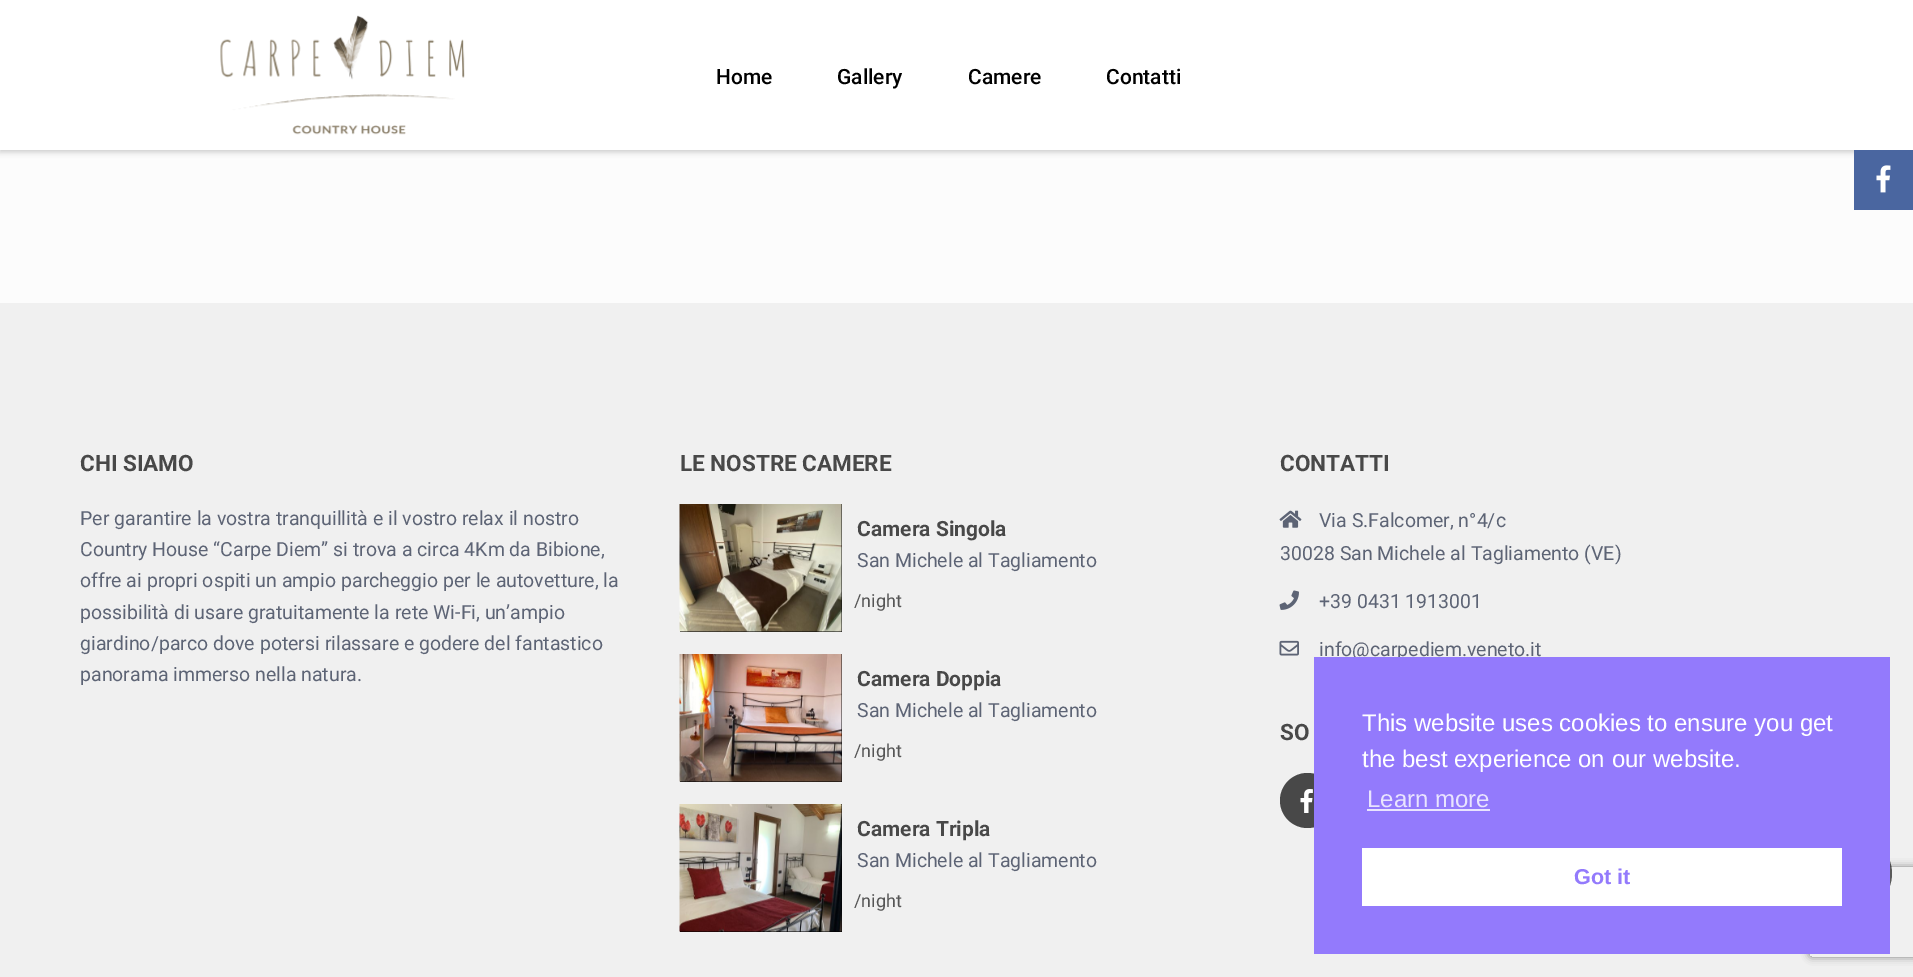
%!PS
<< /PageSize [1913 977] /PageUsesTransparency true >> setpagedevice
/rgb { 3 { 255 div 3 1 roll } repeat setrgbcolor } def
/font { [ exch dup neg 0 0 3 -1 roll 0 0 ] selectfont } def
/text { moveto show } def
/alpha { dup .setfillconstantalpha .setstrokeconstantalpha } def
/circle { newpath 0 360 arc closepath } def
/roundrect { 5 dict begin { /r /h /w /y /x } { exch def } forall
  x r add y moveto x w add y 2 copy h add r arct x w add y h add x 1 index r arct
  x y h add x y r arct x y 2 copy exch w add exch r arct closepath end } def
/shadow { 12 dict begin { /a /b /q /h /w /y /x } { exch def } forall gsave /was 0 def
  9 -2 -9 { dup b mul 4 div /e exch def 1 sub .425 mul 2.718 exch exp 1 add a .99 .min exch div /now exch def
    1 1 now sub 1 was sub div sub alpha /was now def
    w h .min e 2 mul add 0 gt { x e sub y e sub w e 2 mul add h e 2 mul add
      q e add b .6 mul add w h .min 2 div e add .min 0 .max roundrect fill } if } for grestore end } def
/picture { 5 dict begin { /h /w /y /x /name } { exch def } forall
  gsave x y translate w h scale
  w h 8 [w 0 0 h 0 0] name (r) file false 3 colorimage grestore end } def
0 .pushpdf14devicefilter
0 977 translate 1 -1 scale
4 setmiterlimit
252 252 252 rgb
0 0 1913 977 rectfill
0 0 0 rgb
0 2 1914 150 0 3 0.2 shadow
255 255 255 rgb
0 0 1913 150 rectfill
(img_01.rgb) 220 15 245 120 picture
240 240 240 rgb
0 303 1913 674 rectfill
0 0 0 rgb
680 504 162 128 rectfill
(img_02.rgb) 679 504 163 128 picture
680 654 162 128 rectfill
(img_03.rgb) 679 654 163 128 picture
680 804 162 128 rectfill
(img_04.rgb) 679 804 163 128 picture
(img_05.rgb) 1279 510 23 18 picture
(img_06.rgb) 1279 590 20 20 picture
(img_07.rgb) 1279 640 20 16 picture
72 72 72 rgb
1307.5 800.5 27.5 circle fill
(img_08.rgb) 1300 789 13 24 picture
gsave
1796 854 moveto 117 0 rlineto 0 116 rlineto -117 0 rlineto closepath 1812 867 moveto 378 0 rlineto 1.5 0 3 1.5 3 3 rcurveto 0 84 rlineto 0 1.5 -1.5 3 -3 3 rcurveto -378 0 rlineto -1.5 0 -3 -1.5 -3 -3 rcurveto 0 -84 rlineto 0 -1.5 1.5 -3 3 -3 rcurveto closepath eoclip newpath
128 128 128 rgb
1809 867 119 90 3 4 1 shadow
grestore
0.7 alpha
26 26 26 rgb
1854.5 873.5 37.5 circle fill
1 alpha
74 102 160 rgb
1854 150 59 60 rectfill
(img_09.rgb) 1876 165 15 28 picture
/Roboto-Medium 21 font
0 0 0 rgb
(Home) 716 84 text
(Gallery) 837 84 text
(Camere) 968 84 text
(Contatti) 1106 84 text
/Roboto-Bold 22.5 font
72 72 72 rgb
(CHI SIAMO) 80 471 text
/Roboto-Regular 19.5 font
93 100 117 rgb
(Per garantire la vostra tranquillità e il vostro relax il nostro) 80 525 text
(Country House “Carpe Diem” si trova a circa 4Km da Bibione,) 80 556 text
(offre ai propri ospiti un ampio parcheggio per le autovetture, la) 80 587 text
(possibilità di usare gratuitamente la rete Wi-Fi, un’ampio) 80 619 text
(giardino/parco dove potersi rilassare e godere del fantastico) 80 650 text
(panorama immerso nella natura.) 80 681 text
/Roboto-Bold 22.5 font
72 72 72 rgb
(LE NOSTRE CAMERE) 680 471 text
/Roboto-Bold 21 font
(Camera Singola) 857 536 text
/Roboto-Regular 19.5 font
93 100 117 rgb
(San Michele al Tagliamento) 857 567 text
/Roboto-Regular 18 font
85 85 85 rgb
(/night) 854 607 text
/Roboto-Bold 21 font
72 72 72 rgb
(Camera Doppia) 857 686 text
/Roboto-Regular 19.5 font
93 100 117 rgb
(San Michele al Tagliamento) 857 717 text
/Roboto-Regular 18 font
85 85 85 rgb
(/night) 854 757 text
/Roboto-Bold 21 font
72 72 72 rgb
(Camera Tripla) 857 836 text
/Roboto-Regular 19.5 font
93 100 117 rgb
(San Michele al Tagliamento) 857 867 text
/Roboto-Regular 18 font
85 85 85 rgb
(/night) 854 907 text
/Roboto-Bold 22.5 font
72 72 72 rgb
(CONTATTI) 1280 471 text
/Roboto-Regular 19.5 font
93 100 117 rgb
(Via S.Falcomer, n°4/c) 1319 527 text
(30028 San Michele al Tagliamento \(VE\)) 1280 560 text
(+39 0431 1913001) 1319 608 text
(info@carpediem.veneto.it) 1319 656 text
/Roboto-Bold 22.5 font
72 72 72 rgb
(SO) 1280 740 text
147 122 252 rgb
1314 657 576 297 rectfill
/LiberationSans-Regular 24 font
255 255 255 rgb
(This website uses cookies to ensure you get) 1362 731 text
(the best experience on our website.) 1362 767 text
233 228 254 rgb
(Learn more) 1367 807 text
1367 809 123 2 rectfill
255 255 255 rgb
1362 848 480 58 rectfill
/LiberationSans-Bold 21.5 font
147 122 252 rgb
(Got it) 1574 884 text
.poppdf14devicefilter showpage
